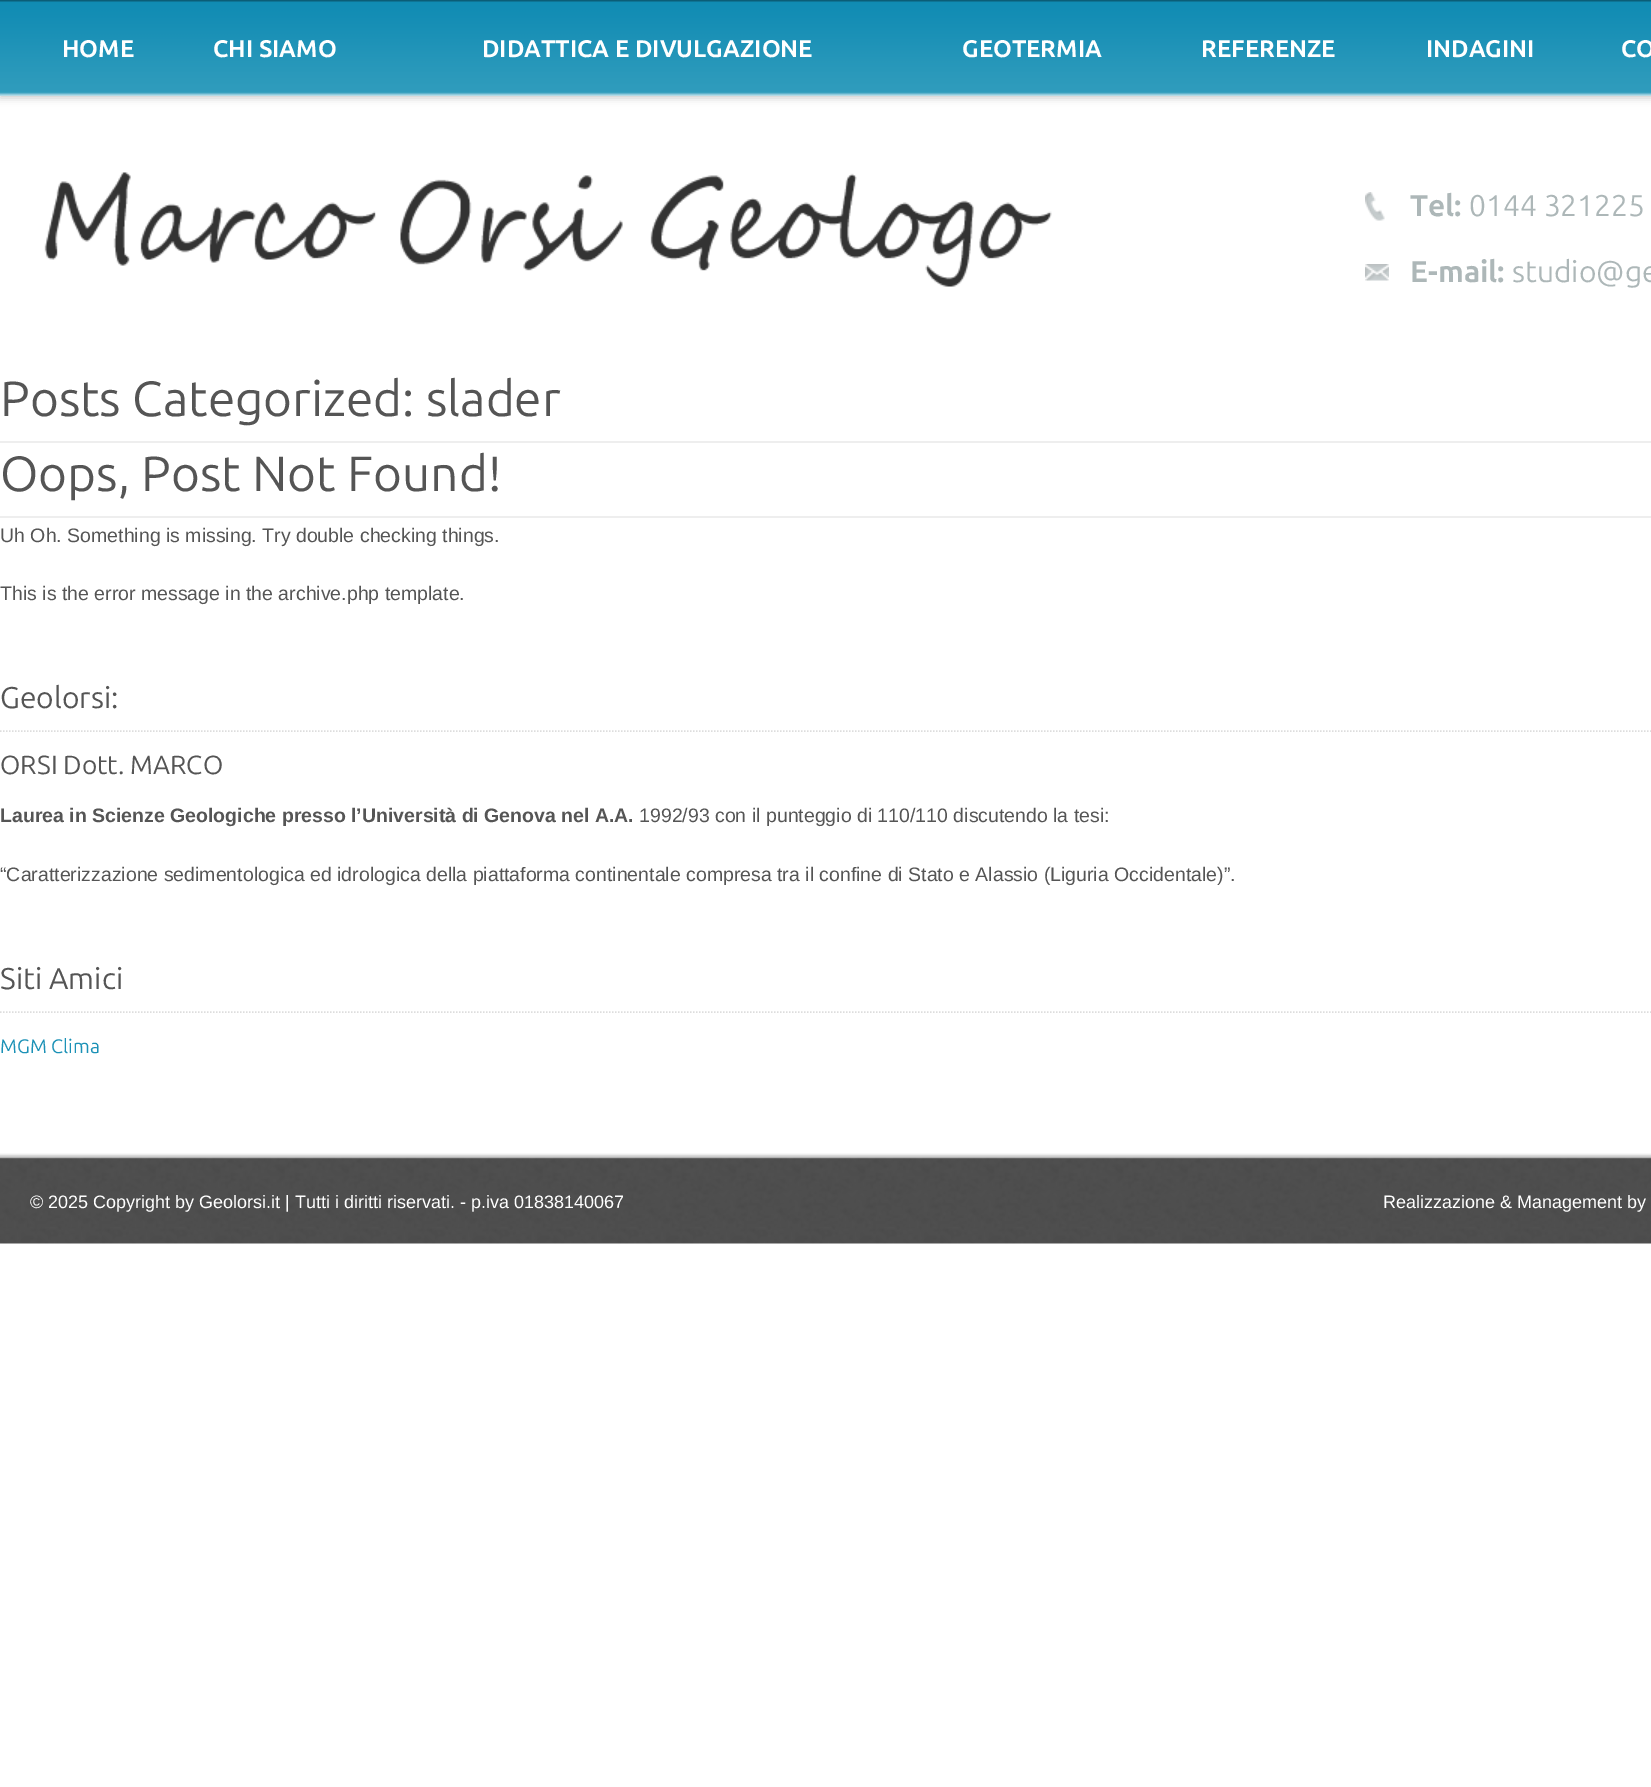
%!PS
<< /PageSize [1651 1787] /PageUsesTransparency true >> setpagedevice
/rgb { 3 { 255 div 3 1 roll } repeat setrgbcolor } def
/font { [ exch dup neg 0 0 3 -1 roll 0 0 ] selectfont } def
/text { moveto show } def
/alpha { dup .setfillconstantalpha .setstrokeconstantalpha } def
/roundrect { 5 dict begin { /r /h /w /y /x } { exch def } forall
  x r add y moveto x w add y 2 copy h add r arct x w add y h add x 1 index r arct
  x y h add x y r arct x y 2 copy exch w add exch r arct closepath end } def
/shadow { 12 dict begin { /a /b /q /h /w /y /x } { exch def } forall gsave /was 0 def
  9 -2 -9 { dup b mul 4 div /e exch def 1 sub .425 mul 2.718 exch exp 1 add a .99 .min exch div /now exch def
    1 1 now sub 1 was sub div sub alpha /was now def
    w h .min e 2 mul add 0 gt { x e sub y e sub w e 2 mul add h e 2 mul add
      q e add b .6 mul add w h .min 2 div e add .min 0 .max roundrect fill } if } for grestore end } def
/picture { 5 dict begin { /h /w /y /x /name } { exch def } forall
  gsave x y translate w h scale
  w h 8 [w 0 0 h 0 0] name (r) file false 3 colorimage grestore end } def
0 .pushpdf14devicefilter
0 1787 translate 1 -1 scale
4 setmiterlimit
255 255 255 rgb
0 0 1651 1787 rectfill
68 68 68 rgb
0 2 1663 96 0 4 0.3 shadow
(img_01.rgb) 0 0 1651 96 picture
(img_02.rgb) 44 172 1008 115 picture
(img_03.rgb) 1365 192 20 29 picture
(img_04.rgb) 1365 264 24 17 picture
238 238 238 rgb
0 441 1651 2 rectfill
0 516 1651 2 rectfill
221 221 221 rgb
1.5 setlinewidth
[1.5 1.5] 0 setdash
0 731 moveto 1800 0 rlineto stroke
0 1012 moveto 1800 0 rlineto stroke
(img_05.rgb) 0 1153 1651 91 picture
/Ubuntu-Bold 24 font
255 255 255 rgb
(HOME) 62 57 text
(CHI SIAMO) 213 57 text
(DIDATTICA E DIVULGAZIONE) 482 57 text
(GEOTERMIA) 962 57 text
(REFERENZE) 1201 57 text
(INDAGINI) 1426 57 text
(CO) 1621 57 text
/Ubuntu-Bold 30 font
173 183 184 rgb
(Tel:) 1410 216 text
/Ubuntu-Regular 30 font
(0144 321225) 1469 216 text
/Ubuntu-Bold 30 font
(E-mail:) 1410 282 text
/Ubuntu-Regular 30 font
(studio@ge) 1512 282 text
/Ubuntu-Regular 49.5 font
85 85 85 rgb
(Posts Categorized: slader) 0 416 text
(Oops, Post Not Found!) 0 491 text
/LiberationSans-Regular 19.5 font
(Uh Oh. Something is missing. Try double checking things.) 0 542 text
(This is the error message in the archive.php template.) 0 600 text
/Ubuntu-Regular 30 font
(Geolorsi:) 0 708 text
/Ubuntu-Regular 26.25 font
(ORSI Dott. MARCO) 0 774 text
/LiberationSans-Bold 19.5 font
(Laurea in Scienze Geologiche presso l’Università di Genova nel A.A.) 0 822 text
/LiberationSans-Regular 19.5 font
(1992/93 con il punteggio di 110/110 discutendo la tesi:) 639 822 text
(“Caratterizzazione sedimentologica ed idrologica della piattaforma continentale compresa tra il confine di Stato e Alassio \(Liguria Occidentale\)”.) 0 881 text
/Ubuntu-Regular 30 font
(Siti Amici) 0 989 text
/Ubuntu-Regular 19.5 font
27 145 182 rgb
(MGM Clima) 0 1053 text
/LiberationSans-Regular 18 font
255 255 255 rgb
(© 2025 Copyright by Geolorsi.it | Tutti i diritti riservati. - p.iva 01838140067) 30 1208 text
(Realizzazione & Management by) 1383 1208 text
.poppdf14devicefilter showpage
